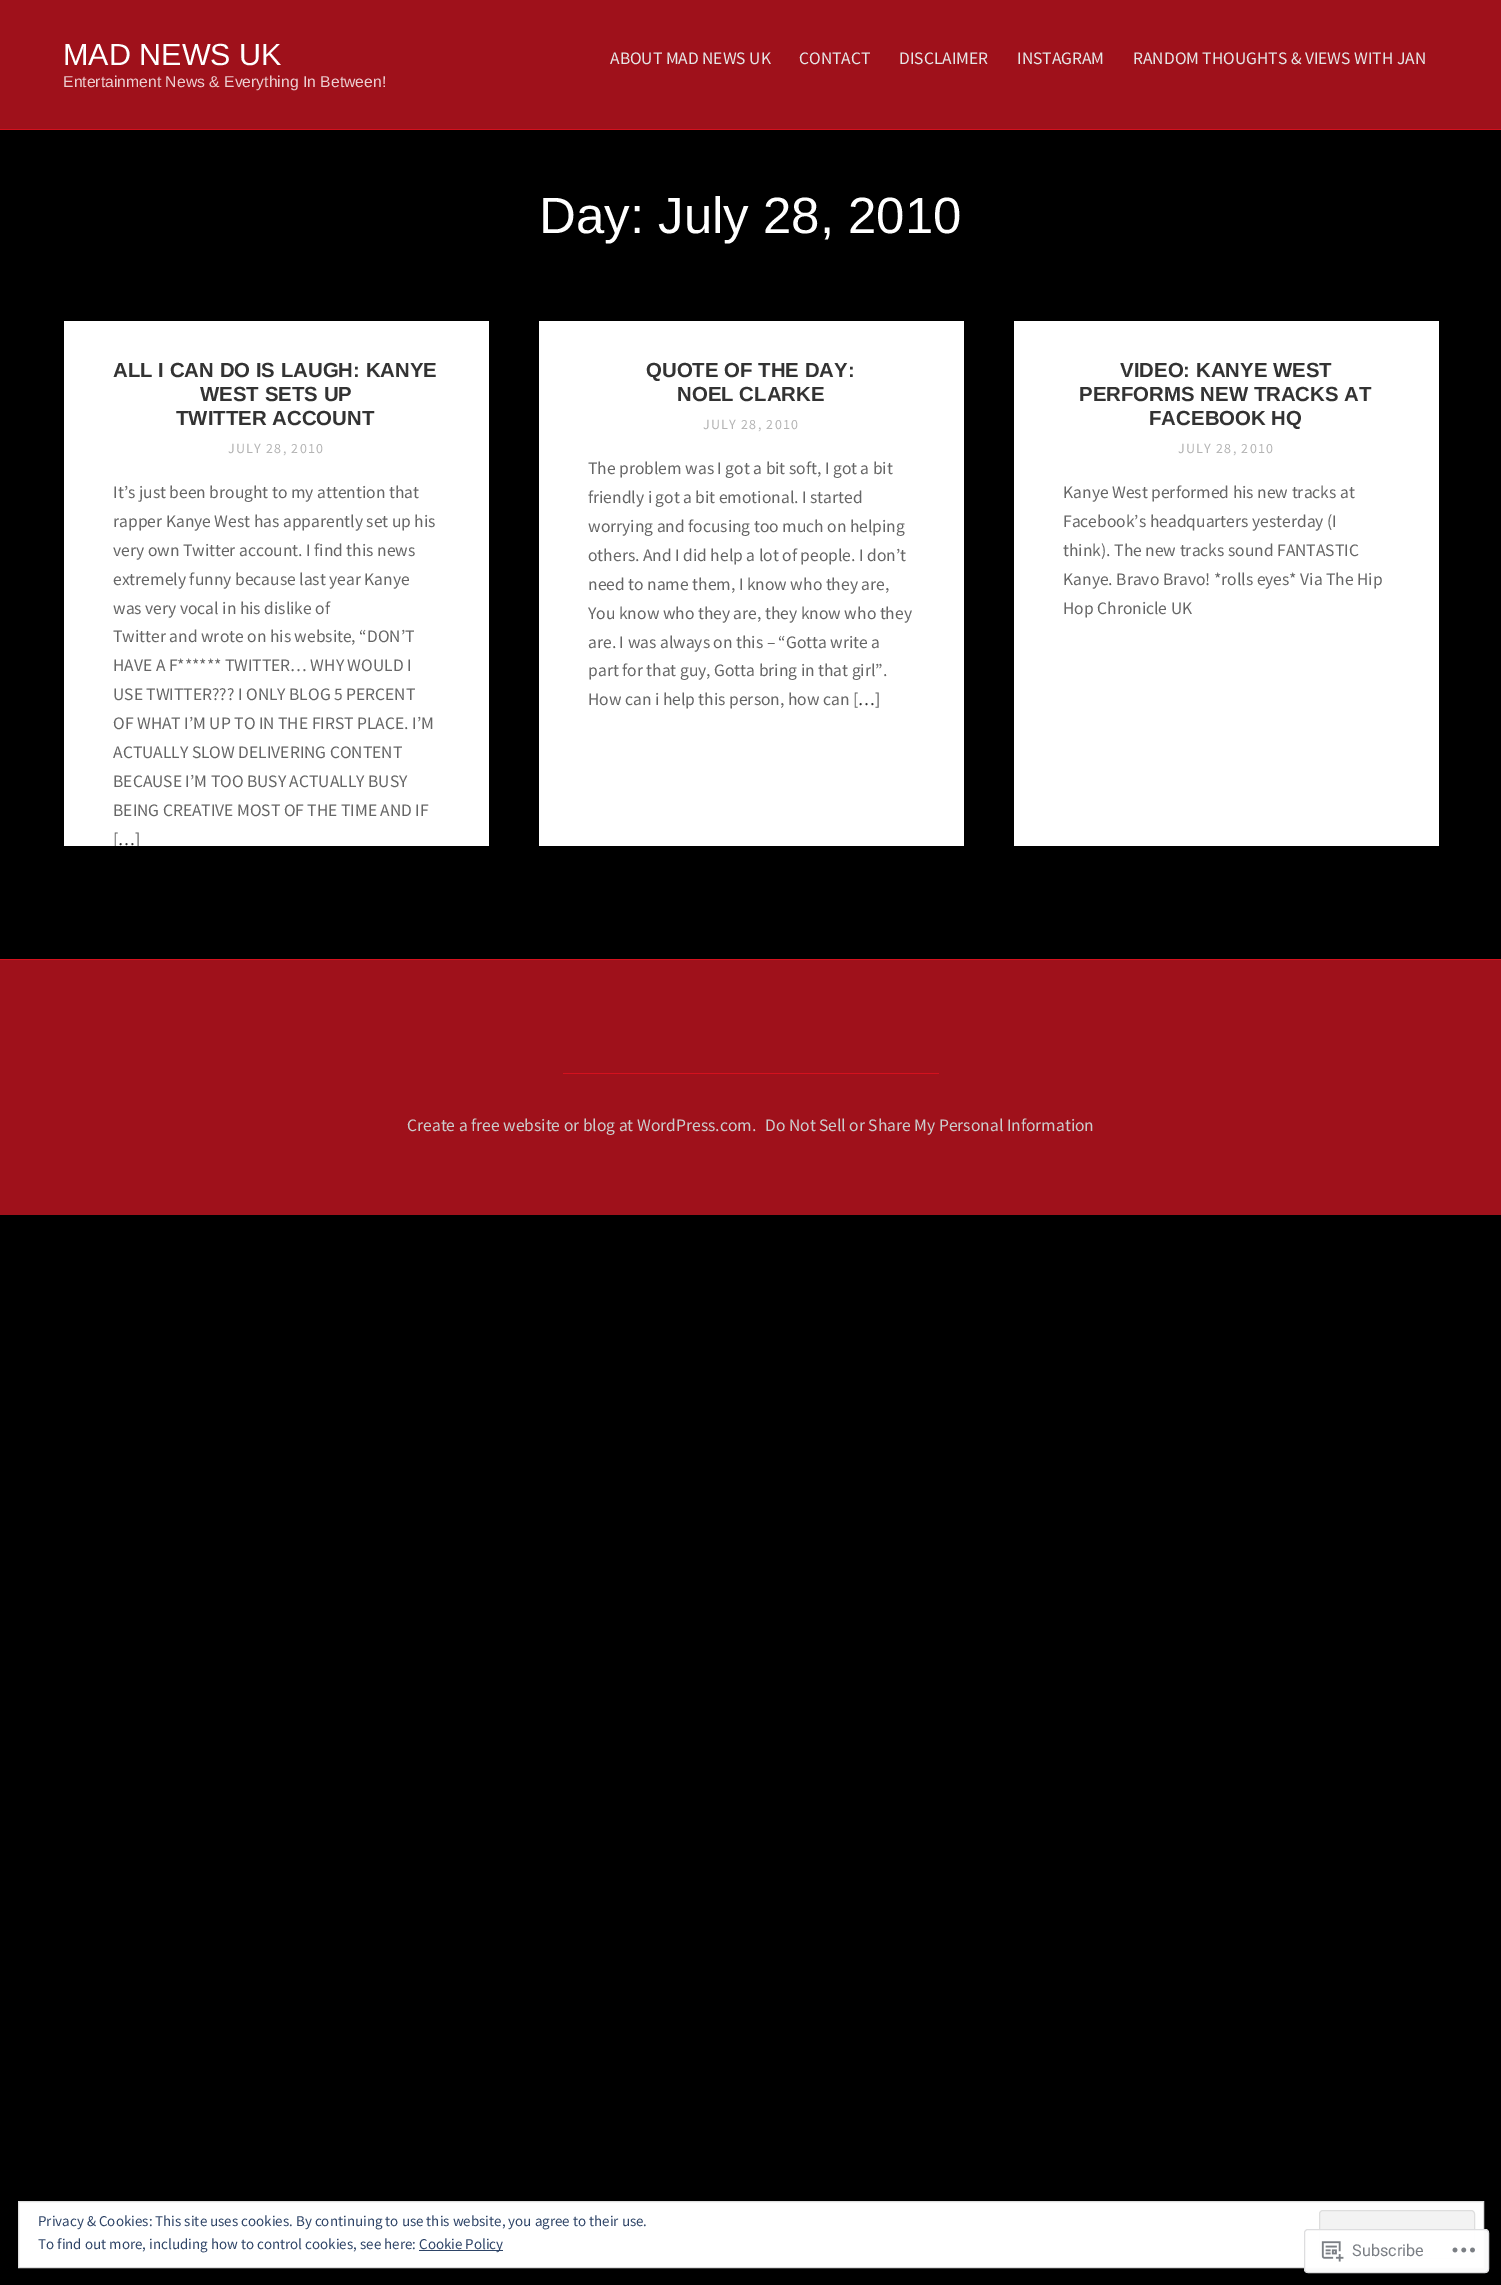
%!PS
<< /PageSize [1501 2285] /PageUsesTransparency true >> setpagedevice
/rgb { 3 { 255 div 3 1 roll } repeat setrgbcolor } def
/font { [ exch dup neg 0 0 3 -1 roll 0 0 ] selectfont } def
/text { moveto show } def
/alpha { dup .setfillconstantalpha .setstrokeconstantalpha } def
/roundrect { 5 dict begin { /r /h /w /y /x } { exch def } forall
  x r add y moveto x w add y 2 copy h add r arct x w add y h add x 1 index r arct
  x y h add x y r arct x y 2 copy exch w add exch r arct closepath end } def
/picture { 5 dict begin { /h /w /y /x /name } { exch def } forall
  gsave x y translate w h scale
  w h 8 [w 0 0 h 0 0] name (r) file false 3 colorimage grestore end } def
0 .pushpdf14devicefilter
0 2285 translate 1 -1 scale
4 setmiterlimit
0 0 0 rgb
0 0 1501 2285 rectfill
159 17 27 rgb
0 0 1501 129 rectfill
212 17 30 rgb
0 129 1501 1 rectfill
255 255 255 rgb
64 321 425 525 rectfill
539 321 425 525 rectfill
1014 321 425 525 rectfill
159 17 27 rgb
0 960 1501 255 rectfill
212 17 30 rgb
0 959 1501 1 rectfill
563 1073 376 1 rectfill
255 255 255 rgb
18.5 2201.5 moveto 1465 0 rlineto 0 66 rlineto -1465 0 rlineto closepath gsave fill grestore
222 222 222 rgb
stroke
243 243 243 rgb
1319.5 2210.5 155 48 3.5 roundrect gsave fill grestore
222 222 222 rgb
stroke
46 68 103 rgb
419 2250 84 1 rectfill
0.98 alpha
255 255 255 rgb
1304 2229 185 44 4 roundrect fill
220 220 222 rgb
1304.5 2229.5 184 43 3.5 roundrect stroke
1 alpha
(img_01.rgb) 1321 2241 23 21 picture
(img_02.rgb) 1452 2247 23 6 picture
/LiberationSans-Regular 30.5 font
255 255 255 rgb
(MAD NEWS UK) 63 65 text
/LiberationSans-Regular 15.75 font
236 207 209 rgb
(Entertainment News & Everything In Between!) 63 87 text
/SourceSansPro-Regular 17.5 font
230 230 230 rgb
(ABOUT MAD NEWS UK) 610 64 text
(CONTACT) 799 64 text
(DISCLAIMER) 899 64 text
(INSTAGRAM) 1017 64 text
(RANDOM THOUGHTS & VIEWS WITH JAN) 1133 64 text
/LiberationSans-Regular 51 font
255 255 255 rgb
(Day: July 28, 2010) 539 233 text
/LiberationSans-Bold 20.4 font
51 51 51 rgb
(ALL I CAN DO IS LAUGH: KANYE) 113 377 text
(WEST SETS UP) 200 401 text
(TWITTER ACCOUNT) 176 425 text
/SourceSansPro-Regular 14 font
179 179 179 rgb
228 453 moveto 1.25 0 (JULY 28, 2010) ashow
/SourceSansPro-Regular 17.5 font
102 102 102 rgb
(It’s just been brought to my attention that) 113 498 text
(rapper Kanye West has apparently set up his) 113 527 text
(very own Twitter account. I find this news) 113 556 text
(extremely funny because last year Kanye) 113 585 text
(was very vocal in his dislike of) 113 614 text
(Twitter and wrote on his website, “DON’T) 113 642 text
(HAVE A F****** TWITTER… WHY WOULD I) 113 671 text
(USE TWITTER??? I ONLY BLOG 5 PERCENT) 113 700 text
(OF WHAT I’M UP TO IN THE FIRST PLACE. I’M) 113 729 text
(ACTUALLY SLOW DELIVERING CONTENT) 113 758 text
(BECAUSE I’M TOO BUSY ACTUALLY BUSY) 113 787 text
(BEING CREATIVE MOST OF THE TIME AND IF) 113 816 text
gsave
39 321 475 525 rectclip
([) 113 845 text
grestore
51 51 51 rgb
(…) 118 845 text
gsave
39 321 475 525 rectclip
102 102 102 rgb
(]) 135 845 text
grestore
/LiberationSans-Bold 20.4 font
(QUOTE OF THE DAY:) 646 377 text
(NOEL CLARKE) 677 401 text
/SourceSansPro-Regular 14 font
179 179 179 rgb
703 429 moveto 1.25 0 (JULY 28, 2010) ashow
/SourceSansPro-Regular 17.5 font
102 102 102 rgb
(The problem was I got a bit soft, I got a bit) 588 474 text
(friendly i got a bit emotional. I started) 588 503 text
(worrying and focusing too much on helping) 588 532 text
(others. And I did help a lot of people. I don’t) 588 561 text
(need to name them, I know who they are,) 588 590 text
(You know who they are, they know who they) 588 619 text
(are. I was always on this – “Gotta write a) 588 648 text
(part for that guy, Gotta bring in that girl”.) 588 676 text
(How can i help this person, how can [) 588 705 text
51 51 51 rgb
(…) 858 705 text
102 102 102 rgb
(]) 875 705 text
/LiberationSans-Bold 20.4 font
51 51 51 rgb
(VIDEO: KANYE WEST) 1120 377 text
(PERFORMS NEW TRACKS AT) 1079 401 text
(FACEBOOK HQ) 1149 425 text
/SourceSansPro-Regular 14 font
179 179 179 rgb
1178 453 moveto 1.25 0 (JULY 28, 2010) ashow
/SourceSansPro-Regular 17.5 font
102 102 102 rgb
(Kanye West performed his new tracks at) 1063 498 text
(Facebook’s headquarters yesterday \(I) 1063 527 text
(think\). The new tracks sound FANTASTIC) 1063 556 text
(Kanye. Bravo Bravo! *rolls eyes* Via The Hip) 1063 585 text
(Hop Chronicle UK) 1063 614 text
204 204 204 rgb
(Create a free website or blog at WordPress.com.) 407 1131 text
(Do Not Sell or Share My Personal Information) 765 1131 text
/SourceSansPro-Regular 15 font
46 68 103 rgb
(Privacy & Cookies: This site uses cookies. By continuing to use this website, you agree to their use.) 38 2226 text
(To find out more, including how to control cookies, see here:) 38 2249 text
(Cookie Policy) 419 2249 text
/Roboto-Regular 16.25 font
122 126 132 rgb
(Subscribe) 1352 2256 text
.poppdf14devicefilter showpage
